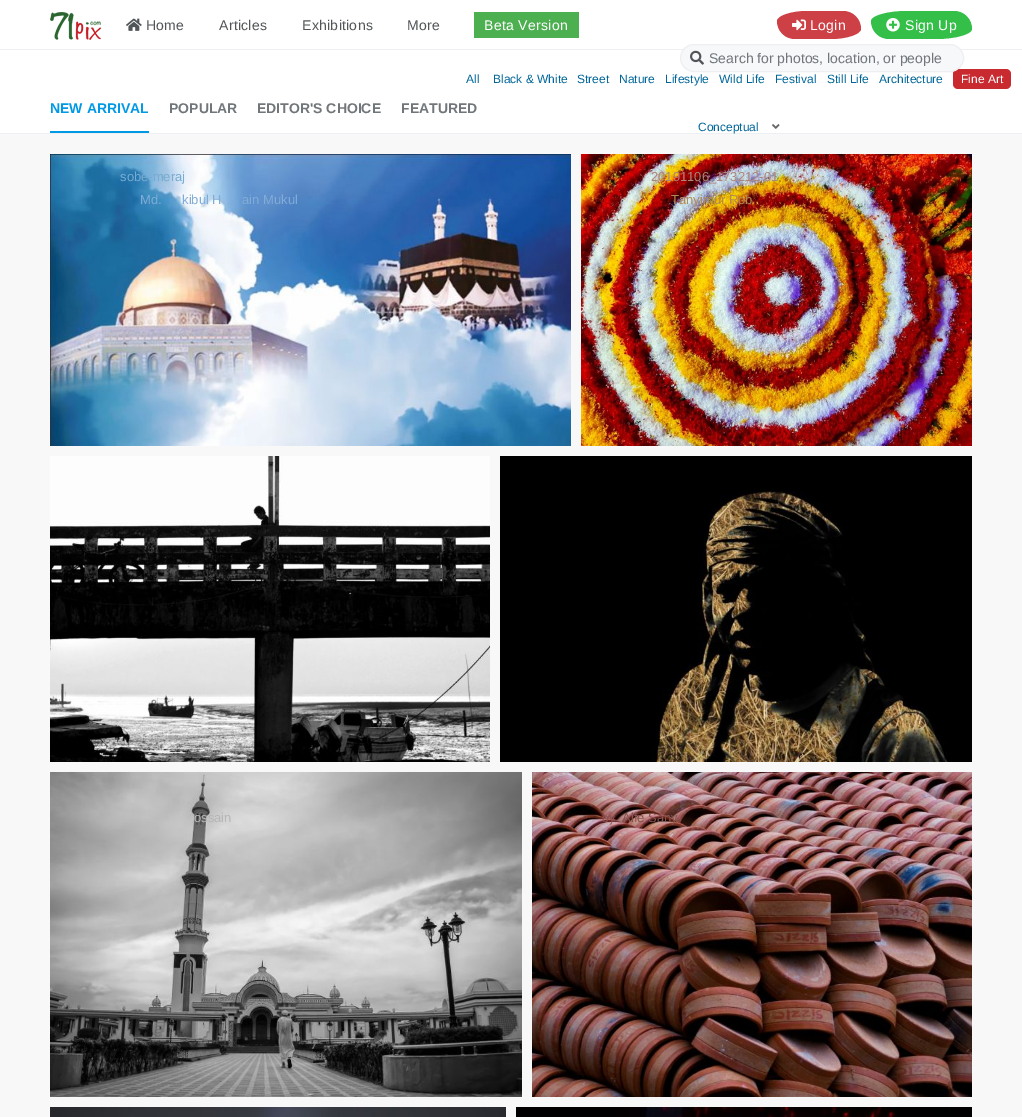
%!PS
<< /PageSize [1022 1117] >> setpagedevice
/rgb { 3 { 255 div 3 1 roll } repeat setrgbcolor } def
/font { [ exch dup neg 0 0 3 -1 roll 0 0 ] selectfont } def
/text { moveto show } def
/roundrect { 5 dict begin { /r /h /w /y /x } { exch def } forall
  x r add y moveto x w add y 2 copy h add r arct x w add y h add x 1 index r arct
  x y h add x y r arct x y 2 copy exch w add exch r arct closepath end } def
/picture { 5 dict begin { /h /w /y /x /name } { exch def } forall
  gsave x y translate w h scale
  w h 8 [w 0 0 h 0 0] name (r) file false 3 colorimage grestore end } def
0 1117 translate 1 -1 scale
4 setmiterlimit
248 248 248 rgb
0 0 1022 1117 rectfill
255 255 255 rgb
0 0 1022 49 rectfill
238 239 242 rgb
0 49 1022 1 rectfill
(img_01.rgb) 50 12 51 28 picture
(img_02.rgb) 126 18 16 13 picture
76 175 80 rgb
474 12 105 26 rectfill
205 64 69 rgb
807 11 moveto 36 0 rlineto 10 0 18 8 18 18 rcurveto 0 5 -14 10 -30 10 rcurveto -36 0 rlineto -10 0 -18 -8 -18 -18 rcurveto 0 -5 14 -10 30 -10 rcurveto closepath fill
(img_03.rgb) 792 19 14 12 picture
52 191 73 rgb
907 11 moveto 47 0 rlineto 10 0 18 8 18 18 rcurveto 0 5 -16 10 -36 10 rcurveto -47 0 rlineto -10 0 -18 -8 -18 -18 rcurveto 0 -5 16 -10 36 -10 rcurveto closepath fill
(img_04.rgb) 886 18 14 14 picture
255 255 255 rgb
0 50 1022 83 rectfill
200 42 48 rgb
953 69 58 20 5 roundrect fill
247 248 250 rgb
680.5 44.5 283 27 13.5 roundrect gsave fill grestore
238 239 242 rgb
stroke
(img_05.rgb) 690 50 14 15 picture
0 133 1022 1 rectfill
0 153 229 rgb
50 131 99 2 rectfill
(img_06.rgb) 772 124 8 5 picture
(img_07.rgb) 50 154 521 292 picture
(img_08.rgb) 581 154 391 292 picture
(img_09.rgb) 50 456 440 306 picture
(img_10.rgb) 500 456 472 306 picture
(img_11.rgb) 50 772 472 325 picture
(img_12.rgb) 532 772 440 325 picture
(img_13.rgb) 50 1107 456 10 picture
(img_14.rgb) 516 1107 456 10 picture
/LiberationSans-Regular 14 font
82 85 88 rgb
146 30 moveto 0.3 0 (Home) ashow
219 30 moveto 0.3 0 (Articles) ashow
302 30 moveto 0.3 0 (Exhibitions) ashow
407 30 moveto 0.3 0 (More) ashow
255 255 255 rgb
484 30 moveto 0.3 0 (Beta Version) ashow
810 30 moveto 0.3 0 (Login) ashow
905 30 moveto 0.3 0 (Sign Up) ashow
113 118 122 rgb
(Search for photos, location, or people) 709 63 text
/LiberationSans-Bold 14 font
0 153 229 rgb
(NEW ARRIVAL) 50 113 text
113 118 122 rgb
(POPULAR) 169 113 text
(EDITOR'S CHOICE) 257 113 text
(FEATURED) 401 113 text
/LiberationSans-Regular 12 font
0 102 153 rgb
(All) 466 83 text
(Black & White) 493 83 text
(Street) 577 83 text
(Nature) 619 83 text
(Lifestyle) 665 83 text
(Wild Life) 719 83 text
(Festival) 775 83 text
(Still Life) 827 83 text
(Architecture) 879 83 text
255 255 255 rgb
(Fine Art) 961 83 text
0 102 153 rgb
(Conceptual) 698 131 text
/LiberationSans-Regular 13 font
119 171 209 rgb
(sobe-meraj) 120 181 text
128 172 215 rgb
(Md.) 140 204 text
(kibul H) 182 204 text
(ain Mukul) 242 204 text
174 133 121 rgb
(20191106_173212-01) 651 181 text
177 139 86 rgb
(Tanyimur Rob) 671 204 text
/LiberationSans-Regular 14 font
188 201 195 rgb
(0) 635 421 text
188 91 9 rgb
(+) 945 439 text
/LiberationSans-Regular 13 font
182 182 182 rgb
(ossain) 194 822 text
/LiberationSans-Regular 14 font
42 42 42 rgb
(0) 104 1072 text
/LiberationSans-Regular 13 font
185 139 142 rgb
(.) 643 799 text
/LiberationSans-Regular 12 font
139 80 80 rgb
(by) 602 822 text
/LiberationSans-Regular 13 font
133 82 78 rgb
(Alfe Sany) 622 822 text
/LiberationSans-Regular 14 font
97 50 40 rgb
(+) 945 1090 text
showpage
